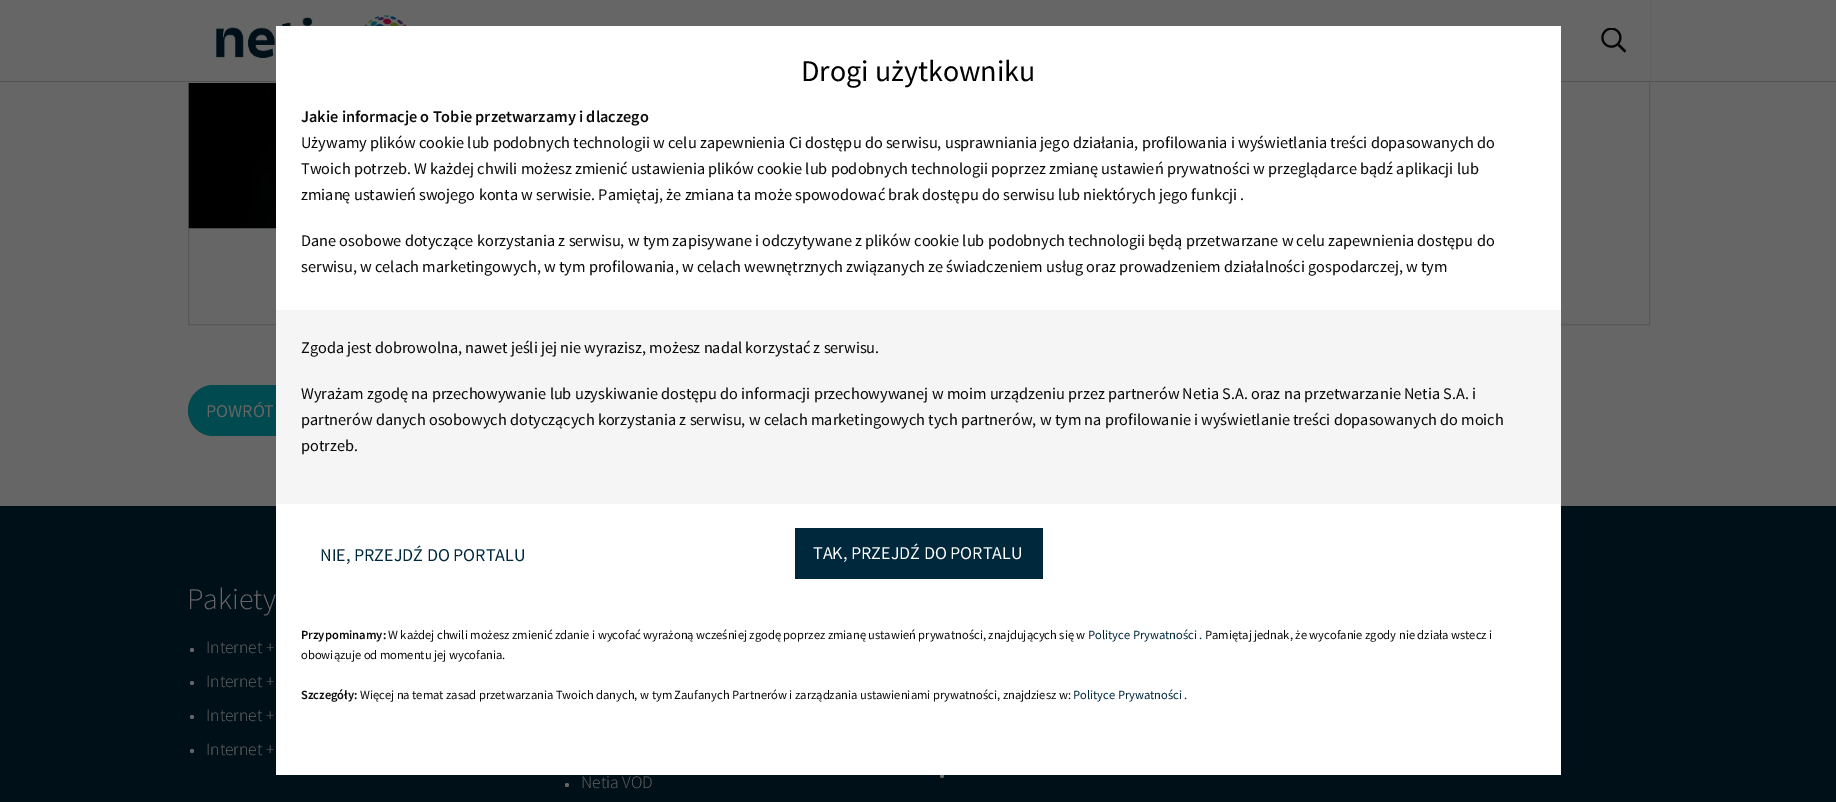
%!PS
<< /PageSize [1836 802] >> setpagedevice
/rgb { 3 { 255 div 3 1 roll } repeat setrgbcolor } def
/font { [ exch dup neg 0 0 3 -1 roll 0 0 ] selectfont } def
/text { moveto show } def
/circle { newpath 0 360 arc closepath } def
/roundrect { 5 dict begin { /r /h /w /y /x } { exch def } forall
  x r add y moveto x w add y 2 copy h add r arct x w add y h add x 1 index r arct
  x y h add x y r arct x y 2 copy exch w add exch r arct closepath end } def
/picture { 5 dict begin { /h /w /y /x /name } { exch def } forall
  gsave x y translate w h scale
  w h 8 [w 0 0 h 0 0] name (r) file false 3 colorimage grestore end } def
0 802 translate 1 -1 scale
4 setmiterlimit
102 102 102 rgb
0 0 1836 802 rectfill
88 88 88 rgb
188.5 -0.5 1461 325 rectstroke
102 102 102 rgb
188 0 1462 83 rectfill
82 82 82 rgb
0 81 1836 1 rectfill
(img_01.rgb) 216 15 191 43 picture
(img_02.rgb) 1601 28 25 25 picture
(img_03.rgb) 188 83 88 146 picture
0 74 80 rgb
188 385 216 51 25.5 roundrect fill
0 16 24 rgb
0 506 1836 296 rectfill
102 102 102 rgb
942 776 2 circle fill
255 255 255 rgb
276 26 1285 749 rectfill
245 245 245 rgb
276 310 1285 194 rectfill
0 40 61 rgb
795 528 248 51 rectfill
102 102 102 rgb
192 650 2 circle fill
192 683 2 circle fill
192 717 2 circle fill
192 751 2 circle fill
567 785 2 circle fill
/SourceSansPro-Regular 18 font
(POWRÓT) 206 417 text
/SourceSansPro-Regular 30 font
0 0 0 rgb
(Drogi użytkowniku) 801 81 text
/SourceSansPro-SemiBold 16.25 font
10 10 10 rgb
(Jakie informacje o Tobie przetwarzamy i dlaczego) 301 122 text
/SourceSansPro-Regular 16.25 font
(Używamy plików cookie lub podobnych technologii w celu zapewnienia Ci dostępu do serwisu, usprawniania jego działania, profilowania i wyświetlania treści dopasowanych do) 301 148 text
(Twoich potrzeb. W każdej chwili możesz zmienić ustawienia plików cookie lub podobnych technologii poprzez zmianę ustawień prywatności w przeglądarce bądź aplikacji lub) 301 174 text
(zmianę ustawień swojego konta w serwisie. Pamiętaj, że zmiana ta może spowodować brak dostępu do serwisu lub niektórych jego funkcji .) 301 200 text
(Dane osobowe dotyczące korzystania z serwisu, w tym zapisywane i odczytywane z plików cookie lub podobnych technologii będą przetwarzane w celu zapewnienia dostępu do) 301 246 text
(serwisu, w celach marketingowych, w tym profilowania, w celach wewnętrznych związanych ze świadczeniem usług oraz prowadzeniem działalności gospodarczej, w tym) 301 272 text
(Zgoda jest dobrowolna, nawet jeśli jej nie wyrazisz, możesz nadal korzystać z serwisu.) 301 353 text
(Wyrażam zgodę na przechowywanie lub uzyskiwanie dostępu do informacji przechowywanej w moim urządzeniu przez partnerów Netia S.A. oraz na przetwarzanie Netia S.A. i) 301 399 text
(partnerów danych osobowych dotyczących korzystania z serwisu, w celach marketingowych tych partnerów, w tym na profilowanie i wyświetlanie treści dopasowanych do moich) 301 425 text
(potrzeb.) 301 451 text
/SourceSansPro-Regular 18 font
0 40 61 rgb
(NIE, PRZEJDŹ DO PORTALU) 320 561 text
254 254 254 rgb
(TAK, PRZEJDŹ DO PORTALU) 813 559 text
/SourceSansPro-SemiBold 12.5 font
10 10 10 rgb
(Przypominamy:) 301 639 text
/SourceSansPro-Regular 12.5 font
(W każdej chwili możesz zmienić zdanie i wycofać wyrażoną wcześniej zgodę poprzez zmianę ustawień prywatności, znajdujących się w) 388 639 text
0 40 61 rgb
(Polityce Prywatności .) 1088 639 text
10 10 10 rgb
(Pamiętaj jednak, że wycofanie zgody nie działa wstecz i) 1205 639 text
(obowiązuje od momentu jej wycofania.) 301 659 text
/SourceSansPro-SemiBold 12.5 font
(Szczegóły:) 301 699 text
/SourceSansPro-Regular 12.5 font
(Więcej na temat zasad przetwarzania Twoich danych, w tym Zaufanych Partnerów i zarządzania ustawieniami prywatności, znajdziesz w:) 360 699 text
0 40 61 rgb
(Polityce Prywatności .) 1073 699 text
/SourceSansPro-Light 30 font
102 102 102 rgb
(Pakiety) 187 609 text
/SourceSansPro-Light 17.5 font
(Internet +) 206 653 text
(Internet +) 206 687 text
(Internet +) 206 721 text
(Internet +) 206 755 text
(Netia VOD) 581 788 text
showpage
